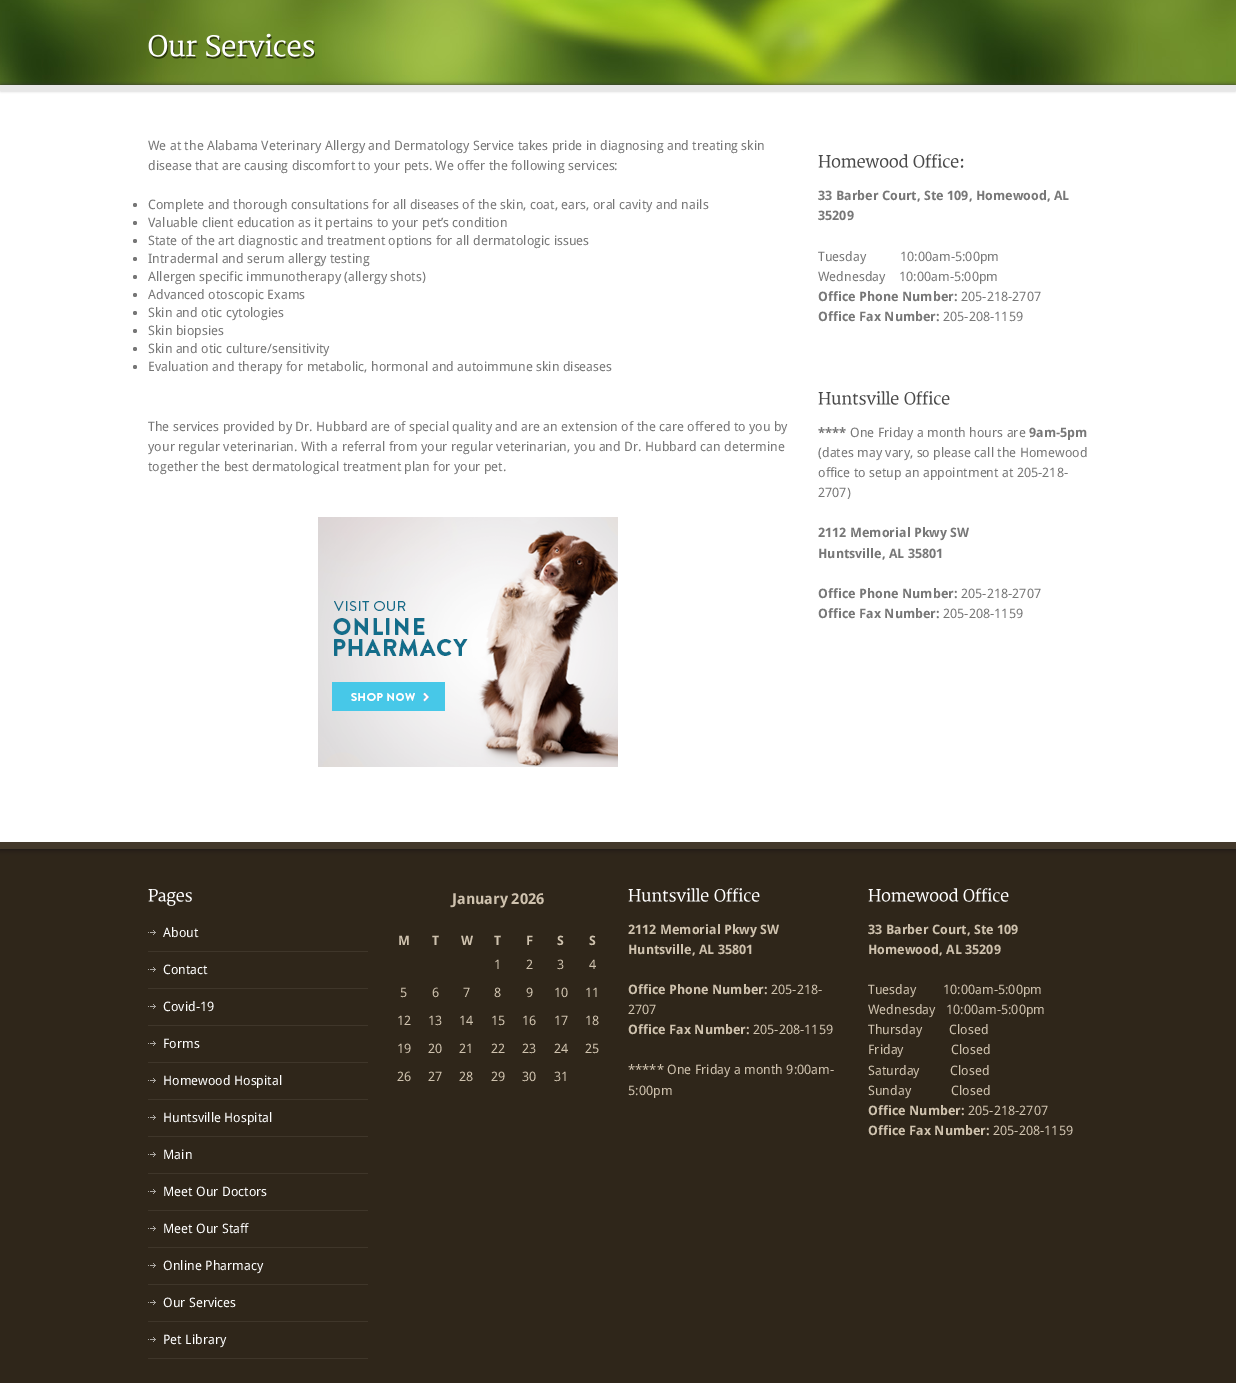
%!PS
<< /PageSize [1236 1383] /PageUsesTransparency true >> setpagedevice
/rgb { 3 { 255 div 3 1 roll } repeat setrgbcolor } def
/font { [ exch dup neg 0 0 3 -1 roll 0 0 ] selectfont } def
/text { moveto show } def
/alpha { dup .setfillconstantalpha .setstrokeconstantalpha } def
/circle { newpath 0 360 arc closepath } def
/roundrect { 5 dict begin { /r /h /w /y /x } { exch def } forall
  x r add y moveto x w add y 2 copy h add r arct x w add y h add x 1 index r arct
  x y h add x y r arct x y 2 copy exch w add exch r arct closepath end } def
/shadow { 12 dict begin { /a /b /q /h /w /y /x } { exch def } forall gsave /was 0 def
  9 -2 -9 { dup b mul 4 div /e exch def 1 sub .425 mul 2.718 exch exp 1 add a .99 .min exch div /now exch def
    1 1 now sub 1 was sub div sub alpha /was now def
    w h .min e 2 mul add 0 gt { x e sub y e sub w e 2 mul add h e 2 mul add
      q e add b .6 mul add w h .min 2 div e add .min 0 .max roundrect fill } if } for grestore end } def
/picture { 5 dict begin { /h /w /y /x /name } { exch def } forall
  gsave x y translate w h scale
  w h 8 [w 0 0 h 0 0] name (r) file false 3 colorimage grestore end } def
0 .pushpdf14devicefilter
0 1383 translate 1 -1 scale
4 setmiterlimit
255 255 255 rgb
0 0 1236 1383 rectfill
(img_01.rgb) 0 0 1236 85 picture
(img_02.rgb) 148 34 50 25 picture
(img_03.rgb) 206 33 109 26 picture
51 51 51 rgb
1 85 1234 4 0 2 1 shadow
231 231 231 rgb
0 85 1236 6 rectfill
119 119 119 rgb
135 205 2 circle fill
135 223 2 circle fill
135 241 2 circle fill
135 259 2 circle fill
135 277 2 circle fill
135 295 2 circle fill
135 313 2 circle fill
135 331 2 circle fill
135 349 2 circle fill
135 367 2 circle fill
(img_04.rgb) 318 517 300 250 picture
(img_05.rgb) 818 154 91 14 picture
(img_06.rgb) 913 154 51 14 picture
(img_07.rgb) 818 391 81 14 picture
(img_08.rgb) 904 391 46 14 picture
47 38 26 rgb
0 849 1236 534 rectfill
gsave
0 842 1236 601 rectclip
17 17 17 rgb
0 842 1236 7 0 3 1 shadow
grestore
67 57 43 rgb
0 842 1236 7 rectfill
(img_09.rgb) 148 889 44 17 picture
(img_10.rgb) 148 930 8 5 picture
63 54 42 rgb
148 951 220 1 rectfill
(img_10.rgb) 148 967 8 5 picture
148 988 220 1 rectfill
(img_10.rgb) 148 1004 8 5 picture
148 1025 220 1 rectfill
(img_10.rgb) 148 1041 8 5 picture
148 1062 220 1 rectfill
(img_10.rgb) 148 1078 8 5 picture
148 1099 220 1 rectfill
(img_10.rgb) 148 1115 8 5 picture
148 1136 220 1 rectfill
(img_10.rgb) 148 1152 8 5 picture
148 1173 220 1 rectfill
(img_10.rgb) 148 1189 8 5 picture
148 1210 220 1 rectfill
(img_10.rgb) 148 1226 8 5 picture
148 1247 220 1 rectfill
(img_10.rgb) 148 1263 8 5 picture
148 1284 220 1 rectfill
(img_10.rgb) 148 1300 8 5 picture
148 1321 220 1 rectfill
(img_10.rgb) 148 1337 8 5 picture
148 1358 220 1 rectfill
(img_11.rgb) 628 888 81 14 picture
(img_12.rgb) 714 888 46 14 picture
(img_13.rgb) 868 888 91 14 picture
(img_12.rgb) 963 888 46 14 picture
/DroidSans-Regular 13 font
119 119 119 rgb
(We at the Alabama Veterinary Allergy and Dermatology Service takes pride in diagnosing and treating skin) 148 150 text
(disease that are causing discomfort to your pets. We offer the following services:) 148 170 text
(Complete and thorough consultations for all diseases of the skin, coat, ears, oral cavity and nails) 148 209 text
(Valuable client education as it pertains to your pet’s condition) 148 227 text
(State of the art diagnostic and treatment options for all dermatologic issues) 148 245 text
(Intradermal and serum allergy testing) 148 263 text
(Allergen specific immunotherapy \(allergy shots\)) 148 281 text
(Advanced otoscopic Exams) 148 299 text
(Skin and otic cytologies) 148 317 text
(Skin biopsies) 148 335 text
(Skin and otic culture/sensitivity) 148 353 text
(Evaluation and therapy for metabolic, hormonal and autoimmune skin diseases) 148 371 text
(The services provided by Dr. Hubbard are of special quality and are an extension of the care offered to you by) 148 431 text
(your regular veterinarian. With a referral from your regular veterinarian, you and Dr. Hubbard can determine) 148 451 text
(together the best dermatological treatment plan for your pet.) 148 471 text
/DroidSans-Bold 13 font
(33 Barber Court, Ste 109, Homewood, AL) 818 200 text
(35209) 818 220 text
/DroidSans-Regular 13 font
(Tuesday) 818 261 text
(10:00am-5:00pm) 900 261 text
(Wednesday) 818 281 text
(10:00am-5:00pm) 899 281 text
/DroidSans-Bold 13 font
(Office Phone Number:) 818 301 text
/DroidSans-Regular 13 font
(205-218-2707) 961 301 text
/DroidSans-Bold 13 font
(Office Fax Number:) 818 321 text
/DroidSans-Regular 13 font
(205-208-1159) 943 321 text
/DroidSans-Bold 13 font
(****) 818 437 text
/DroidSans-Regular 13 font
(One Friday a month hours are) 850 437 text
/DroidSans-Bold 13 font
(9am-5pm) 1029 437 text
/DroidSans-Regular 13 font
(\(dates may vary, so please call the Homewood) 818 457 text
(office to setup an appointment at 205-218-) 818 477 text
(2707\)) 818 497 text
/DroidSans-Bold 13 font
(2112 Memorial Pkwy SW) 818 537 text
(Huntsville, AL 35801) 818 558 text
(Office Phone Number:) 818 598 text
/DroidSans-Regular 13 font
(205-218-2707) 961 598 text
/DroidSans-Bold 13 font
(Office Fax Number:) 818 618 text
/DroidSans-Regular 13 font
(205-208-1159) 943 618 text
255 255 255 rgb
(About) 163 937 text
(Contact) 163 974 text
(Covid-19) 163 1011 text
(Forms) 163 1048 text
(Homewood Hospital) 163 1085 text
(Huntsville Hospital) 163 1122 text
(Main) 163 1159 text
(Meet Our Doctors) 163 1196 text
(Meet Our Staff) 163 1233 text
(Online Pharmacy) 163 1270 text
(Our Services) 163 1307 text
(Pet Library) 163 1344 text
/DroidSans-Bold 15 font
207 194 174 rgb
(January 2026) 452 904 text
/DroidSans-Bold 13 font
(M) 398 945 text
(T) 432 945 text
(W) 461 945 text
(T) 494 945 text
(F) 526 945 text
(S) 557 945 text
(S) 589 945 text
/DroidSans-Regular 13 font
(1) 494 969 text
(2) 526 969 text
(3) 557 969 text
(4) 589 969 text
(5) 400 997 text
(6) 432 997 text
(7) 463 997 text
(8) 494 997 text
(9) 526 997 text
(10) 554 997 text
(11) 585 997 text
(12) 397 1025 text
(13) 428 1025 text
(14) 459 1025 text
(15) 491 1025 text
(16) 522 1025 text
(17) 554 1025 text
(18) 585 1025 text
(19) 397 1053 text
(20) 428 1053 text
(21) 459 1053 text
(22) 491 1053 text
(23) 522 1053 text
(24) 554 1053 text
(25) 585 1053 text
(26) 397 1081 text
(27) 428 1081 text
(28) 459 1081 text
(29) 491 1081 text
(30) 522 1081 text
(31) 554 1081 text
/DroidSans-Bold 13 font
(2112 Memorial Pkwy SW) 628 934 text
(Huntsville, AL 35801) 628 954 text
(Office Phone Number:) 628 994 text
/DroidSans-Regular 13 font
(205-218-) 771 994 text
(2707) 628 1014 text
/DroidSans-Bold 13 font
(Office Fax Number:) 628 1034 text
/DroidSans-Regular 13 font
(205-208-1159) 753 1034 text
(***** One Friday a month 9:00am-) 628 1074 text
(5:00pm) 628 1095 text
/DroidSans-Bold 13 font
(33 Barber Court, Ste 109) 868 934 text
(Homewood, AL 35209) 868 954 text
/DroidSans-Regular 13 font
(Tuesday) 868 994 text
(10:00am-5:00pm) 943 994 text
(Wednesday) 868 1014 text
(10:00am-5:00pm) 946 1014 text
(Thursday) 868 1034 text
(Closed) 949 1034 text
(Friday) 868 1054 text
(Closed) 951 1054 text
(Saturday) 868 1075 text
(Closed) 950 1075 text
(Sunday) 868 1095 text
(Closed) 951 1095 text
/DroidSans-Bold 13 font
(Office Number:) 868 1115 text
/DroidSans-Regular 13 font
(205-218-2707) 968 1115 text
/DroidSans-Bold 13 font
(Office Fax Number:) 868 1135 text
/DroidSans-Regular 13 font
(205-208-1159) 993 1135 text
.poppdf14devicefilter showpage
